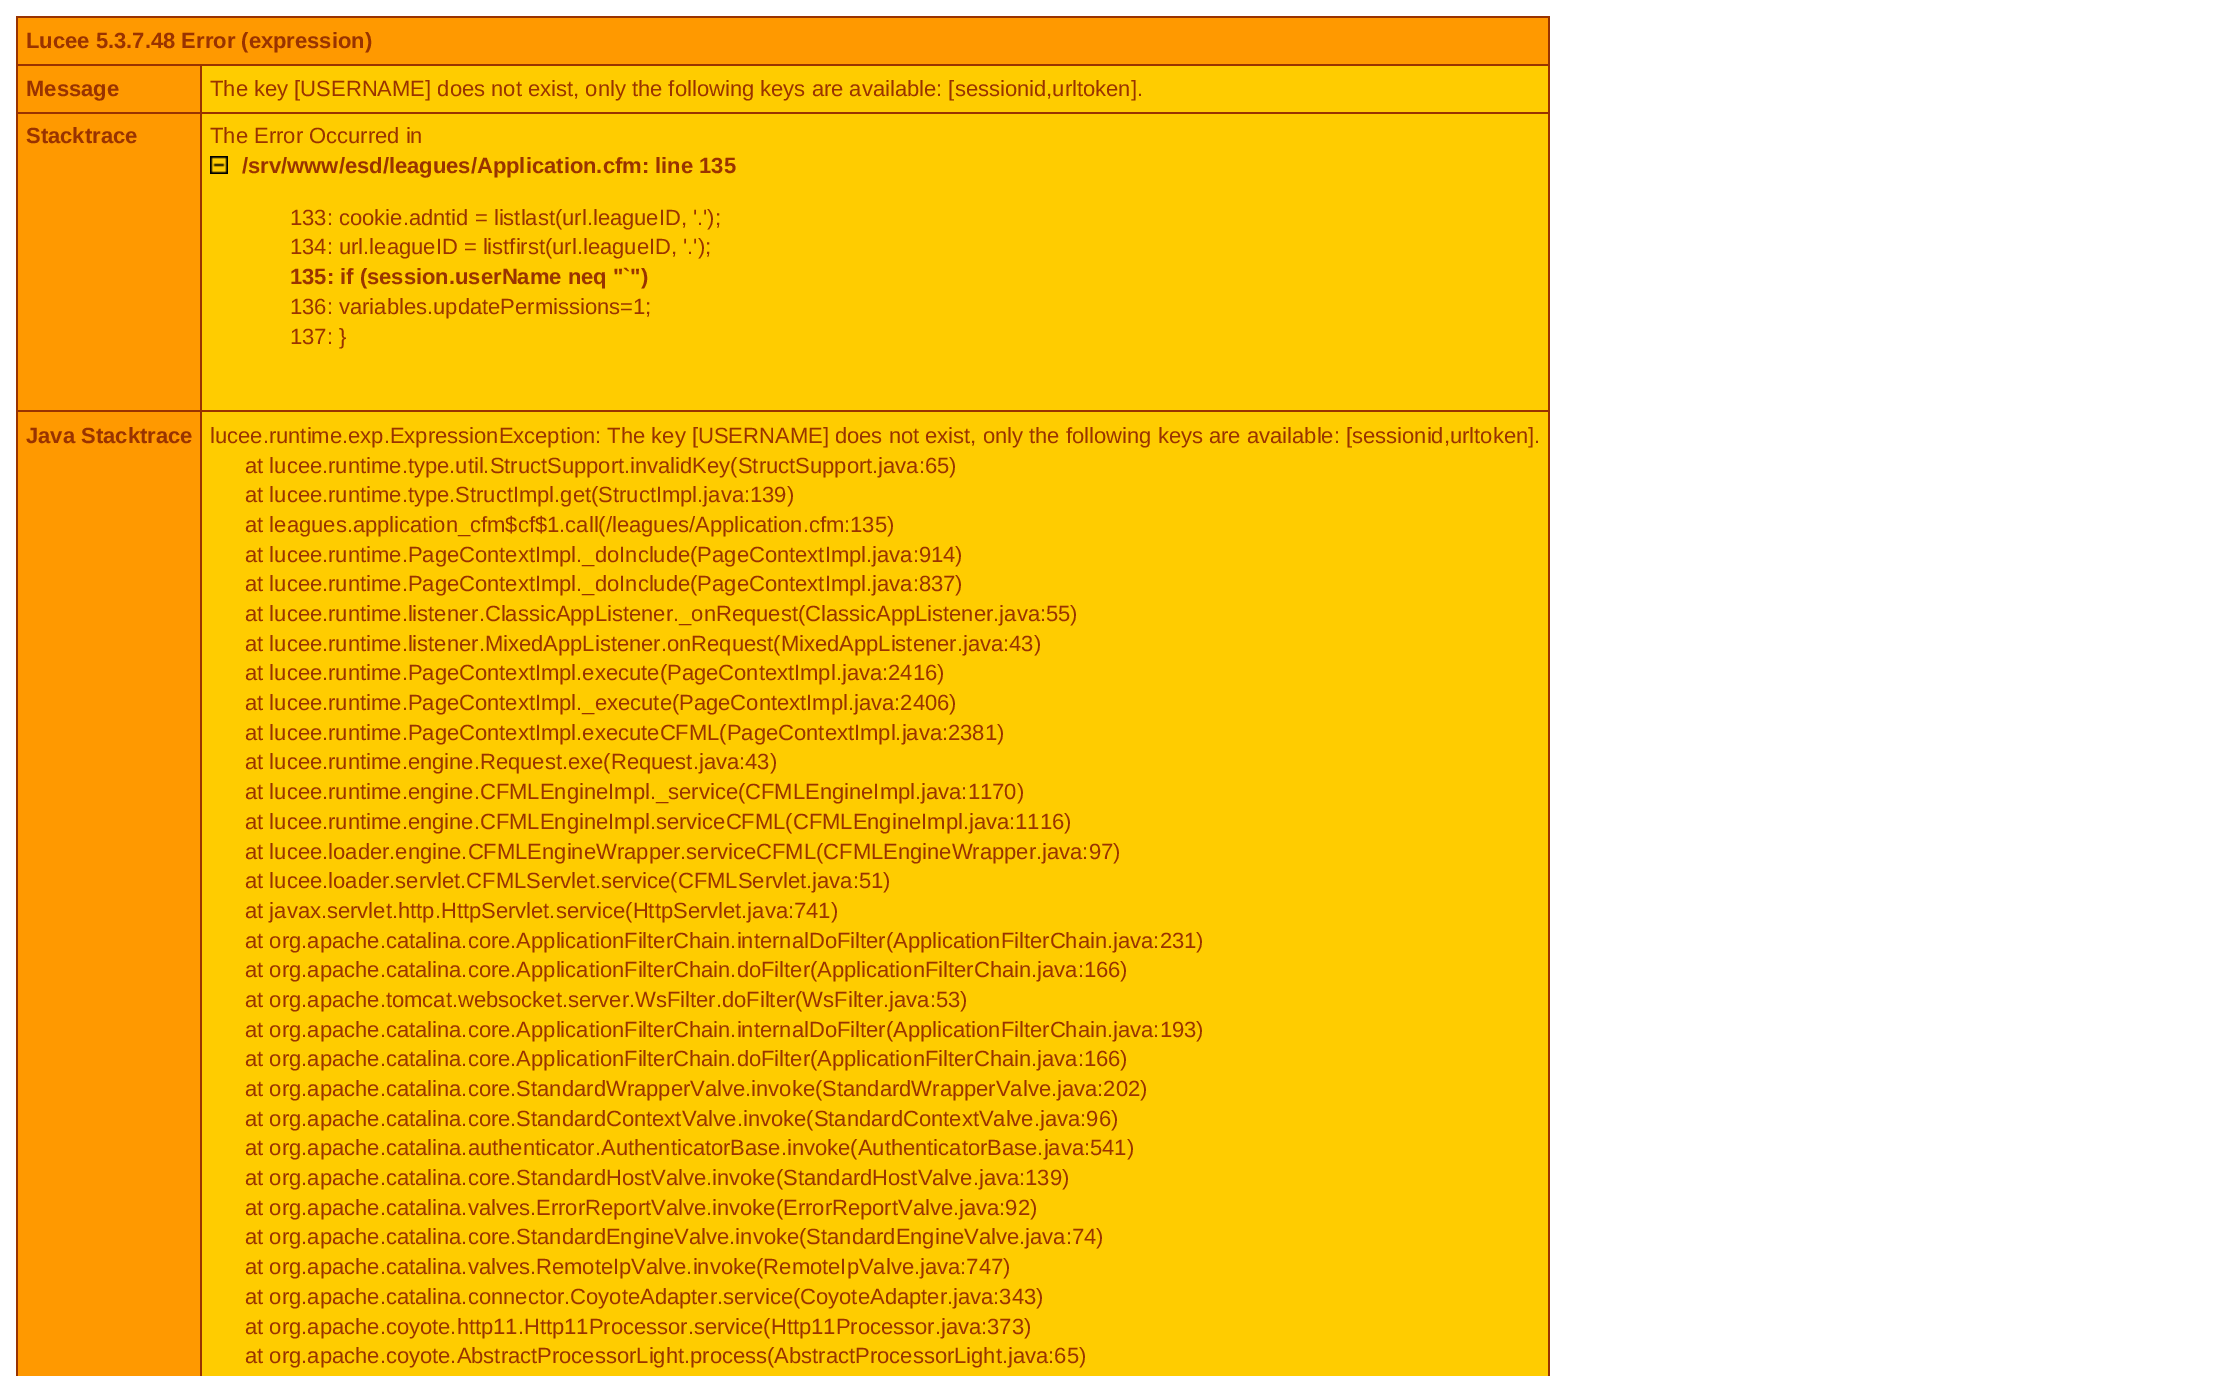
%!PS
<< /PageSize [2223 1376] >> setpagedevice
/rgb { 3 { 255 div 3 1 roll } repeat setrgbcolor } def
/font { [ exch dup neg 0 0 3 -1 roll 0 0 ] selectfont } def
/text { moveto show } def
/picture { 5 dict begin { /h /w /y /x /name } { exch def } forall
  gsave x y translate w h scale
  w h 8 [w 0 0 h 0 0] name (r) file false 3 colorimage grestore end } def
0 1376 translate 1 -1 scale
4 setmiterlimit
255 255 255 rgb
0 0 2223 1376 rectfill
153 51 0 rgb
16 16 1534 1360 rectfill
255 153 0 rgb
18 18 1530 46 rectfill
18 66 182 46 rectfill
255 204 0 rgb
202 66 1346 46 rectfill
255 153 0 rgb
18 114 182 296 rectfill
255 204 0 rgb
202 114 1346 296 rectfill
(img_01.rgb) 210 156 18 18 picture
255 153 0 rgb
18 412 182 964 rectfill
255 204 0 rgb
202 412 1346 964 rectfill
/LiberationSans-Bold 22 font
153 51 0 rgb
(Lucee 5.3.7.48 Error \(expression\)) 26 48 text
(Message) 26 96 text
/LiberationSans-Regular 22 font
(The key [USERNAME] does not exist, only the following keys are available: [sessionid,urltoken].) 210 96 text
/LiberationSans-Bold 22 font
(Stacktrace) 26 143 text
/LiberationSans-Regular 22 font
(The Error Occurred in) 210 143 text
/LiberationSans-Bold 22 font
(/srv/www/esd/leagues/Application.cfm: line 135) 242 173 text
/LiberationSans-Regular 22 font
(133: cookie.adntid = listlast\(url.leagueID, '.'\);) 290 225 text
(134: url.leagueID = listfirst\(url.leagueID, '.'\);) 290 254 text
/LiberationSans-Bold 22 font
(135: if \(session.userName neq "`"\)) 290 284 text
/LiberationSans-Regular 22 font
(136: variables.updatePermissions=1;) 290 314 text
(137: }) 290 344 text
/LiberationSans-Bold 22 font
(Java Stacktrace) 26 443 text
/LiberationSans-Regular 22 font
(lucee.runtime.exp.ExpressionException: The key [USERNAME] does not exist, only the following keys are available: [sessionid,urltoken].) 210 443 text
(at lucee.runtime.type.util.StructSupport.invalidKey\(StructSupport.java:65\)) 245 473 text
(at lucee.runtime.type.StructImpl.get\(StructImpl.java:139\)) 245 502 text
(at leagues.application_cfm$cf$1.call\(/leagues/Application.cfm:135\)) 245 532 text
(at lucee.runtime.PageContextImpl._doInclude\(PageContextImpl.java:914\)) 245 562 text
(at lucee.runtime.PageContextImpl._doInclude\(PageContextImpl.java:837\)) 245 591 text
(at lucee.runtime.listener.ClassicAppListener._onRequest\(ClassicAppListener.java:55\)) 245 621 text
(at lucee.runtime.listener.MixedAppListener.onRequest\(MixedAppListener.java:43\)) 245 651 text
(at lucee.runtime.PageContextImpl.execute\(PageContextImpl.java:2416\)) 245 680 text
(at lucee.runtime.PageContextImpl._execute\(PageContextImpl.java:2406\)) 245 710 text
(at lucee.runtime.PageContextImpl.executeCFML\(PageContextImpl.java:2381\)) 245 740 text
(at lucee.runtime.engine.Request.exe\(Request.java:43\)) 245 769 text
(at lucee.runtime.engine.CFMLEngineImpl._service\(CFMLEngineImpl.java:1170\)) 245 799 text
(at lucee.runtime.engine.CFMLEngineImpl.serviceCFML\(CFMLEngineImpl.java:1116\)) 245 829 text
(at lucee.loader.engine.CFMLEngineWrapper.serviceCFML\(CFMLEngineWrapper.java:97\)) 245 859 text
(at lucee.loader.servlet.CFMLServlet.service\(CFMLServlet.java:51\)) 245 888 text
(at javax.servlet.http.HttpServlet.service\(HttpServlet.java:741\)) 245 918 text
(at org.apache.catalina.core.ApplicationFilterChain.internalDoFilter\(ApplicationFilterChain.java:231\)) 245 948 text
(at org.apache.catalina.core.ApplicationFilterChain.doFilter\(ApplicationFilterChain.java:166\)) 245 977 text
(at org.apache.tomcat.websocket.server.WsFilter.doFilter\(WsFilter.java:53\)) 245 1007 text
(at org.apache.catalina.core.ApplicationFilterChain.internalDoFilter\(ApplicationFilterChain.java:193\)) 245 1037 text
(at org.apache.catalina.core.ApplicationFilterChain.doFilter\(ApplicationFilterChain.java:166\)) 245 1066 text
(at org.apache.catalina.core.StandardWrapperValve.invoke\(StandardWrapperValve.java:202\)) 245 1096 text
(at org.apache.catalina.core.StandardContextValve.invoke\(StandardContextValve.java:96\)) 245 1126 text
(at org.apache.catalina.authenticator.AuthenticatorBase.invoke\(AuthenticatorBase.java:541\)) 245 1155 text
(at org.apache.catalina.core.StandardHostValve.invoke\(StandardHostValve.java:139\)) 245 1185 text
(at org.apache.catalina.valves.ErrorReportValve.invoke\(ErrorReportValve.java:92\)) 245 1215 text
(at org.apache.catalina.core.StandardEngineValve.invoke\(StandardEngineValve.java:74\)) 245 1244 text
(at org.apache.catalina.valves.RemoteIpValve.invoke\(RemoteIpValve.java:747\)) 245 1274 text
(at org.apache.catalina.connector.CoyoteAdapter.service\(CoyoteAdapter.java:343\)) 245 1304 text
(at org.apache.coyote.http11.Http11Processor.service\(Http11Processor.java:373\)) 245 1334 text
(at org.apache.coyote.AbstractProcessorLight.process\(AbstractProcessorLight.java:65\)) 245 1363 text
showpage
